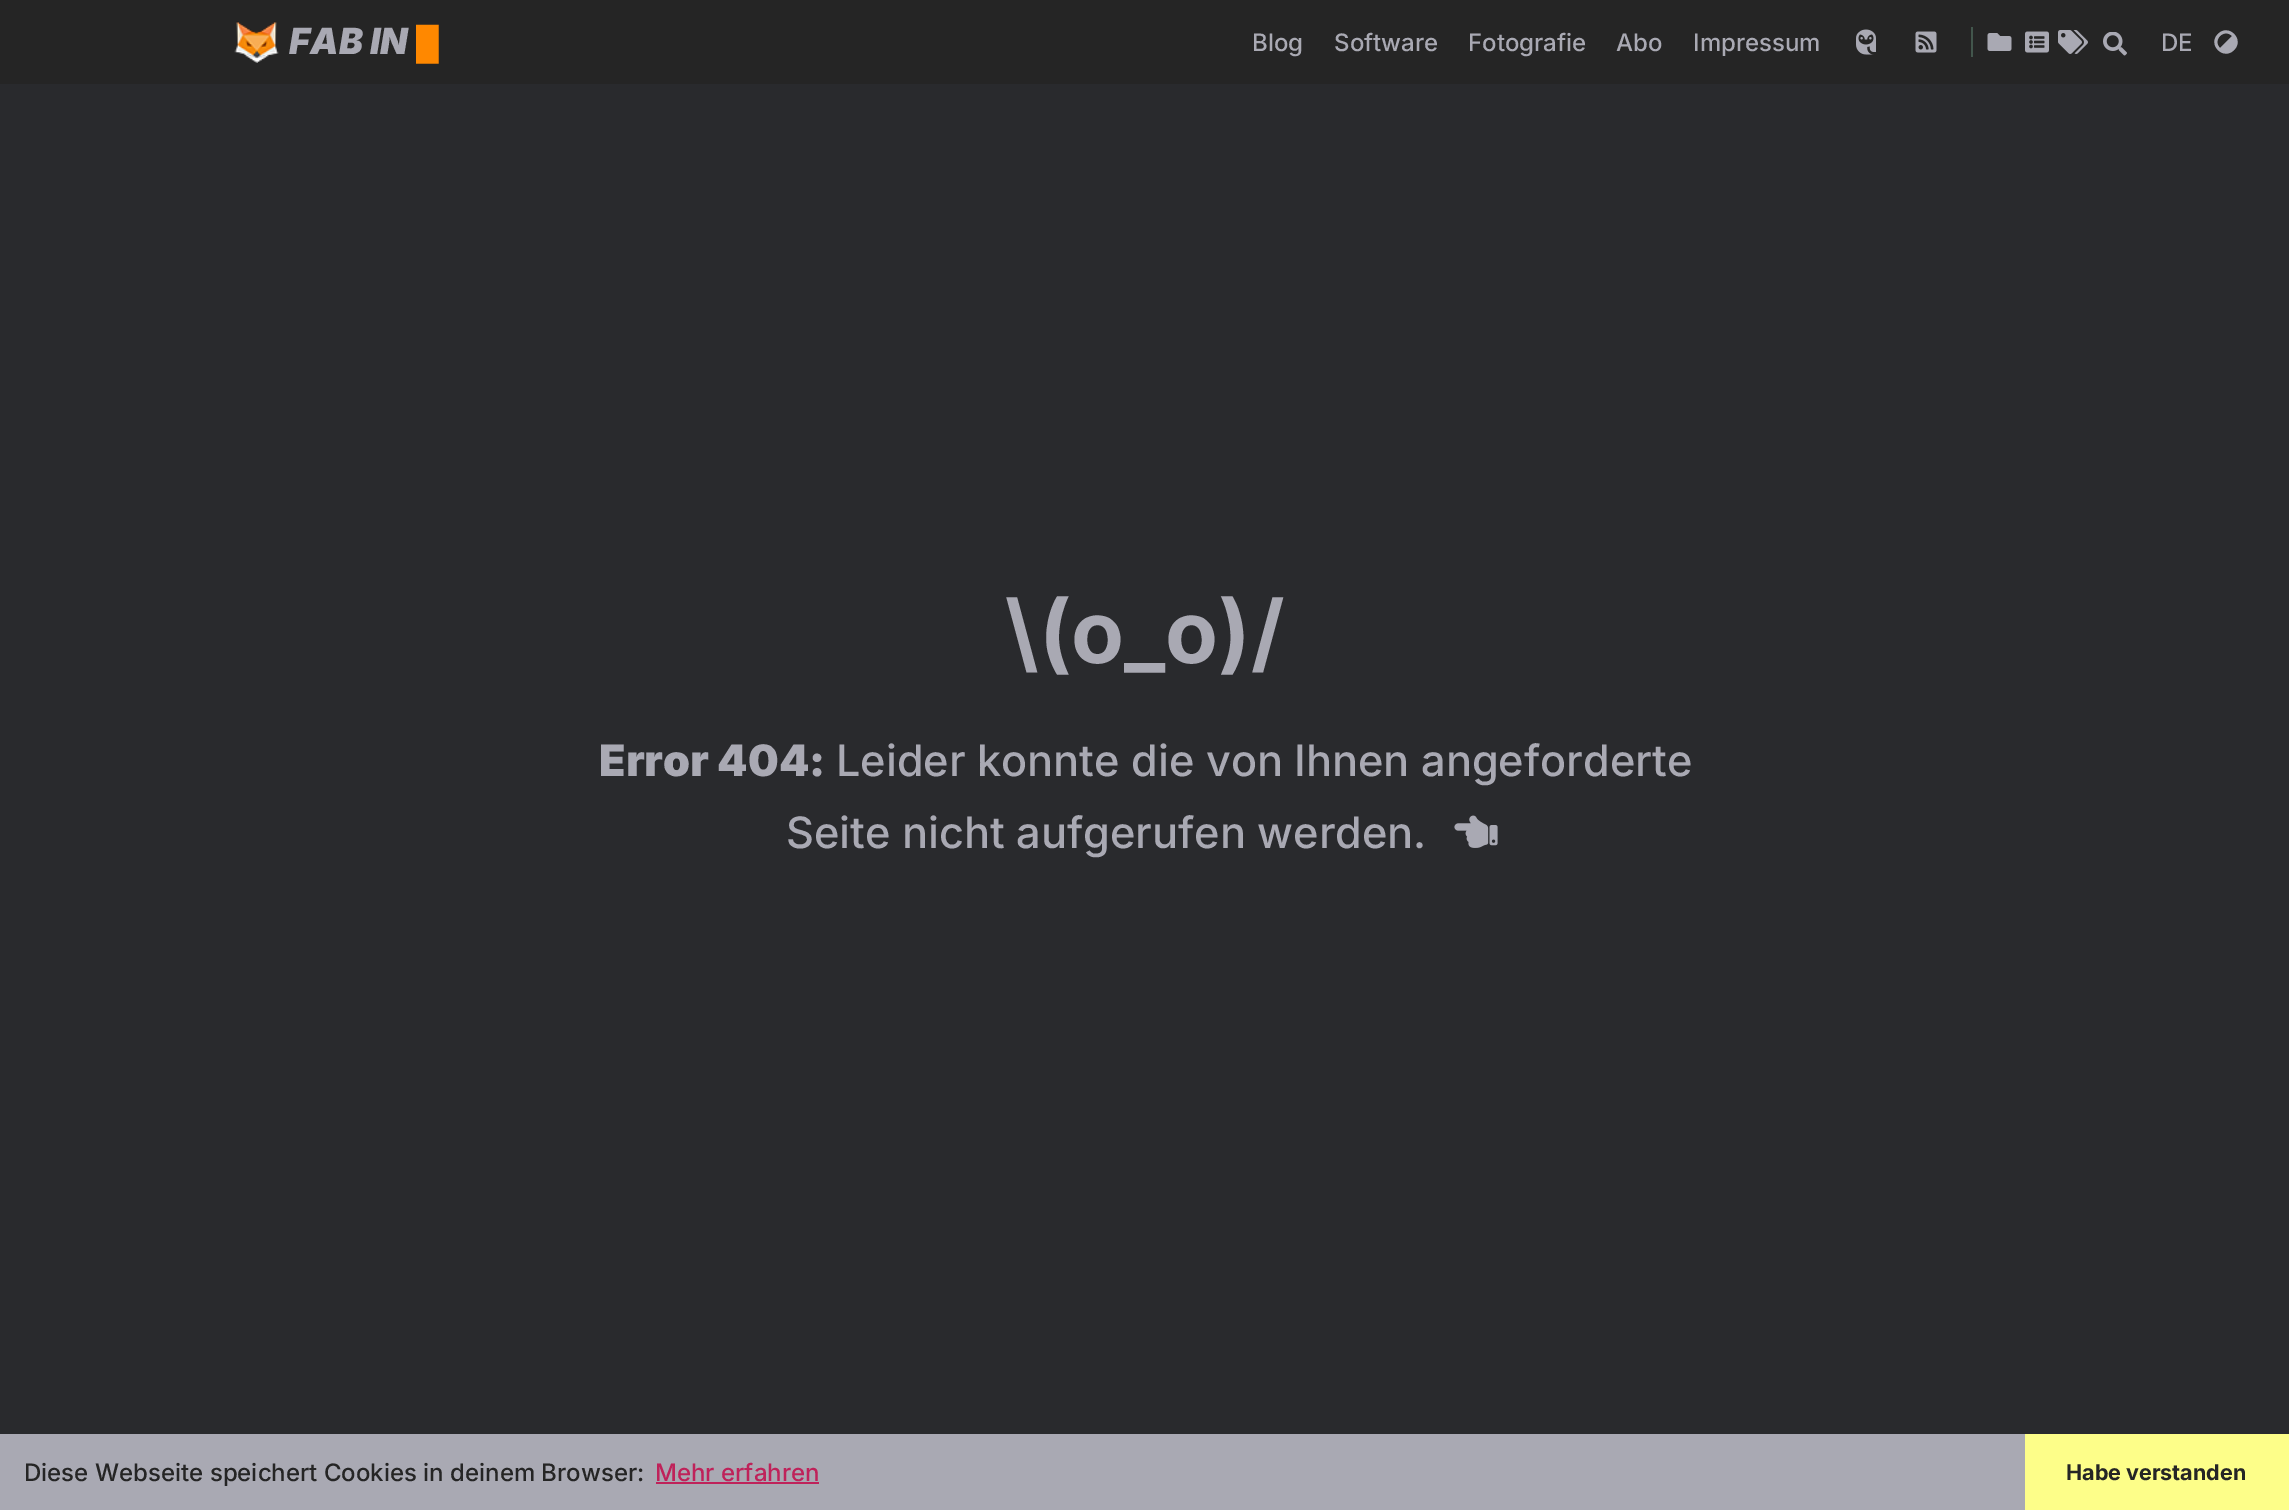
%!PS
<< /PageSize [2289 1510] >> setpagedevice
/rgb { 3 { 255 div 3 1 roll } repeat setrgbcolor } def
/font { [ exch dup neg 0 0 3 -1 roll 0 0 ] selectfont } def
/text { moveto show } def
/picture { 5 dict begin { /h /w /y /x /name } { exch def } forall
  gsave x y translate w h scale
  w h 8 [w 0 0 h 0 0] name (r) file false 3 colorimage grestore end } def
0 1510 translate 1 -1 scale
4 setmiterlimit
41 42 45 rgb
0 0 2289 1510 rectfill
37 37 37 rgb
0 0 2289 84 rectfill
(img_01.rgb) 234 21 45 42 picture
(img_02.rgb) 1856 29 20 26 picture
(img_03.rgb) 1915 31 22 22 picture
66 86 76 rgb
1971 27 2 30 rectfill
(img_04.rgb) 1987 33 25 18 picture
(img_05.rgb) 2025 31 24 22 picture
(img_06.rgb) 2058 30 30 24 picture
(img_07.rgb) 2103 32 24 24 picture
169 169 179 rgb
2234 50 moveto 11 -10.5 -5.5 -27 -16 -16 rcurveto -11 10.5 5.5 27 16 16 rcurveto closepath 2232 36 moveto -12 12 rlineto -8 -8 4 -20 12 -12 rcurveto closepath fill
(img_08.rgb) 1454 815 44 33 picture
0 1434 2025 76 rectfill
191 34 90 rgb
656 1482 163 2 rectfill
253 254 137 rgb
2025 1434 264 76 rectfill
/Inter-BlackItalic 36 font
169 169 179 rgb
(FAB IN) 289 54 text
/LiberationSans-Bold 32 font
255 136 0 rgb
(█) 416 54 text
/Inter-Medium 24 font
169 169 179 rgb
(Blog) 1252 51 text
(Software) 1334 51 text
(Fotografie) 1468 51 text
(Abo) 1616 51 text
(Impressum) 1693 51 text
(DE) 2161 51 text
/Inter-Bold 86.5 font
(\\\(o_o\)/) 1005 663 text
/Inter-Black 43.25 font
(Error 404:) 599 776 text
/Inter-Medium 43.25 font
(Leider konnte die von Ihnen angeforderte) 836 776 text
(Seite nicht aufgerufen werden.) 786 848 text
/Inter-Medium 24 font
37 37 37 rgb
(Diese Webseite speichert Cookies in deinem Browser:) 24 1481 text
191 34 90 rgb
(Mehr erfahren) 655 1481 text
/Inter-Bold 21.5 font
37 37 37 rgb
(Habe verstanden) 2066 1480 text
showpage
